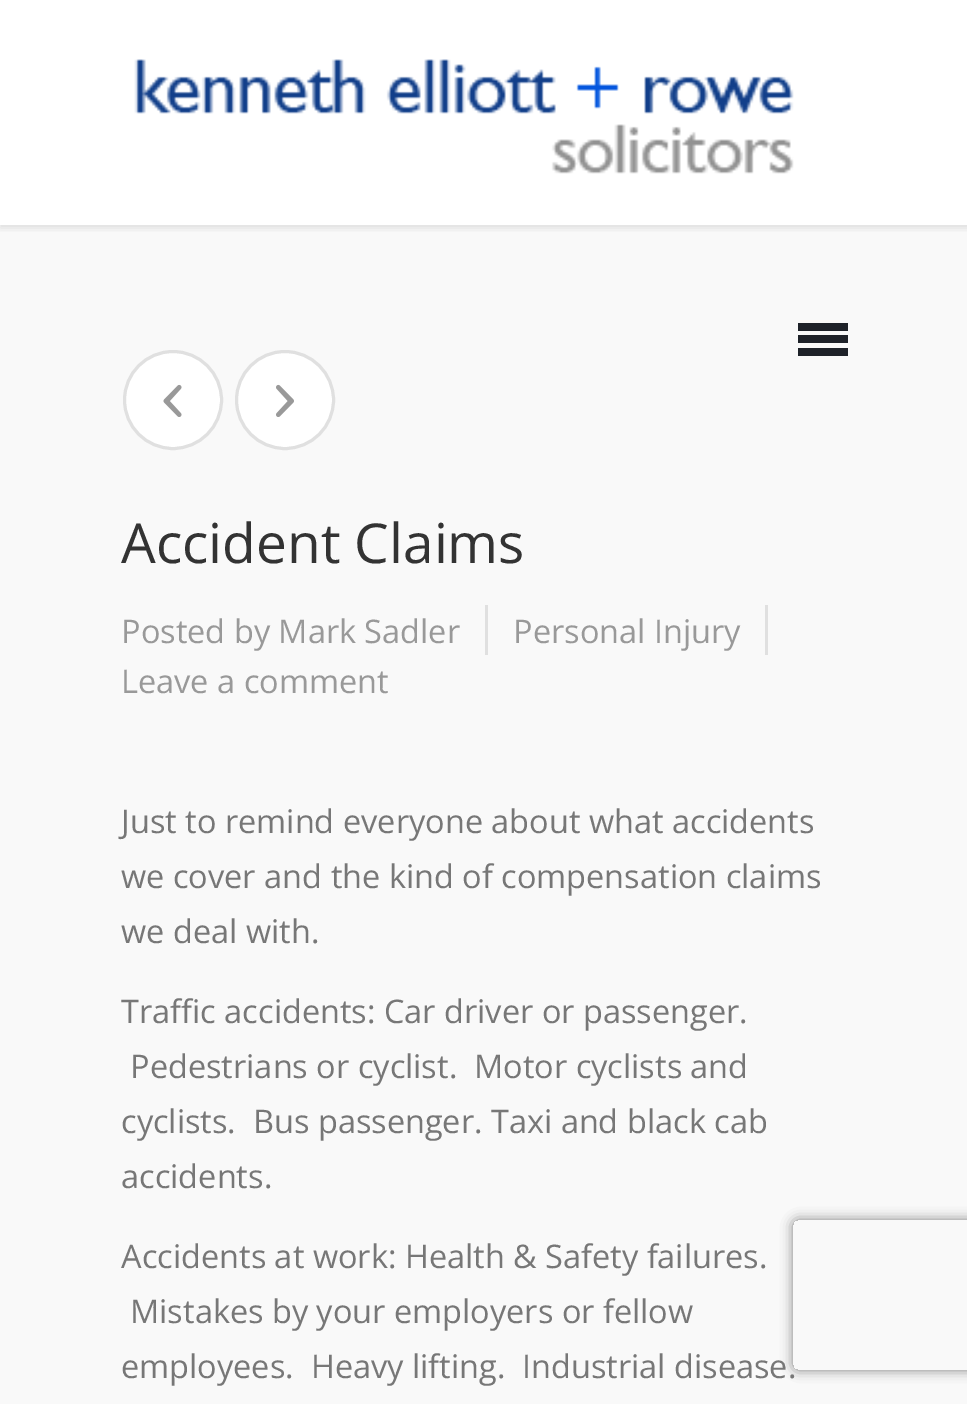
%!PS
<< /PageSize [967 1404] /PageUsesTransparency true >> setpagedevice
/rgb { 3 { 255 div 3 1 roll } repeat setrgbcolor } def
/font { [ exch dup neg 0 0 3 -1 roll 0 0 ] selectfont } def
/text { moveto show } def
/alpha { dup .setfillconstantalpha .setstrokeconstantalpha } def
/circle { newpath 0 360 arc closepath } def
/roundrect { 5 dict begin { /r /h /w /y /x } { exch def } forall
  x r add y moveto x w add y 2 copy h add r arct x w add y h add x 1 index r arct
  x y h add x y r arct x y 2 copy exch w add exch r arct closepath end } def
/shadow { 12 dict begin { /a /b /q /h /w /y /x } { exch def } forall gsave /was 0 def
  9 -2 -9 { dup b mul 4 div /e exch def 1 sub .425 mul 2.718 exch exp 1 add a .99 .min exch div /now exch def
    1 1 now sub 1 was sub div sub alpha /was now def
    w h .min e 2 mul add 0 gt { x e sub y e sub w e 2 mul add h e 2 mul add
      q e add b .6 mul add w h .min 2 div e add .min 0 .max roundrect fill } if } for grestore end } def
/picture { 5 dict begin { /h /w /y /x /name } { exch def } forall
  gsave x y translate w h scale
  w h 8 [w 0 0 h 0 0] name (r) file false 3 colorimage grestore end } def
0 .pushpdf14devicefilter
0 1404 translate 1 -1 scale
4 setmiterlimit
255 255 255 rgb
0 0 967 1404 rectfill
249 249 249 rgb
0 225 967 1179 rectfill
gsave
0 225 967 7 rectclip
0 0 0 rgb
0 3 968 225 0 4 0.11 shadow
grestore
(img_01.rgb) 134 59 660 115 picture
30 34 41 rgb
798 323 50 8 rectfill
798 335 50 8 rectfill
798 348 50 8 rectfill
255 255 255 rgb
173 400 48.5 circle gsave fill grestore
224 224 224 rgb
3 setlinewidth
stroke
(img_02.rgb) 163 384 19 33 picture
255 255 255 rgb
285 400 48.5 circle gsave fill grestore
224 224 224 rgb
stroke
(img_03.rgb) 276 384 18 33 picture
485 605 3 50 rectfill
765 605 3 50 rectfill
gsave
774 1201 moveto 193 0 rlineto 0 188 rlineto -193 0 rlineto closepath 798 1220 moveto 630 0 rlineto 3 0 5 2 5 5 rcurveto 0 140 rlineto 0 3 -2 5 -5 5 rcurveto -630 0 rlineto -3 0 -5 -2 -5 -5 rcurveto 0 -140 rlineto 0 -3 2 -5 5 -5 rcurveto closepath eoclip newpath
128 128 128 rgb
793 1220 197 150 5 6 1 shadow
grestore
/OpenSans-Regular 55 font
51 51 51 rgb
(Accident Claims) 121 563 text
/OpenSans-Regular 32.5 font
153 153 153 rgb
(Posted by Mark Sadler) 121 643 text
(Personal Injury) 513 643 text
(Leave a comment) 121 693 text
119 119 119 rgb
(Just to remind everyone about what accidents) 121 833 text
(we cover and the kind of compensation claims) 121 888 text
(we deal with.) 121 943 text
(Traffic accidents: Car driver or passenger.) 121 1023 text
(Pedestrians or cyclist.  Motor cyclists and) 130 1078 text
(cyclists.  Bus passenger. Taxi and black cab) 121 1133 text
(accidents.) 121 1188 text
(Accidents at work: Health & Safety failures.) 121 1268 text
(Mistakes by your employers or fellow) 130 1323 text
(employees.  Heavy lifting.  Industrial disease.) 121 1378 text
.poppdf14devicefilter showpage
